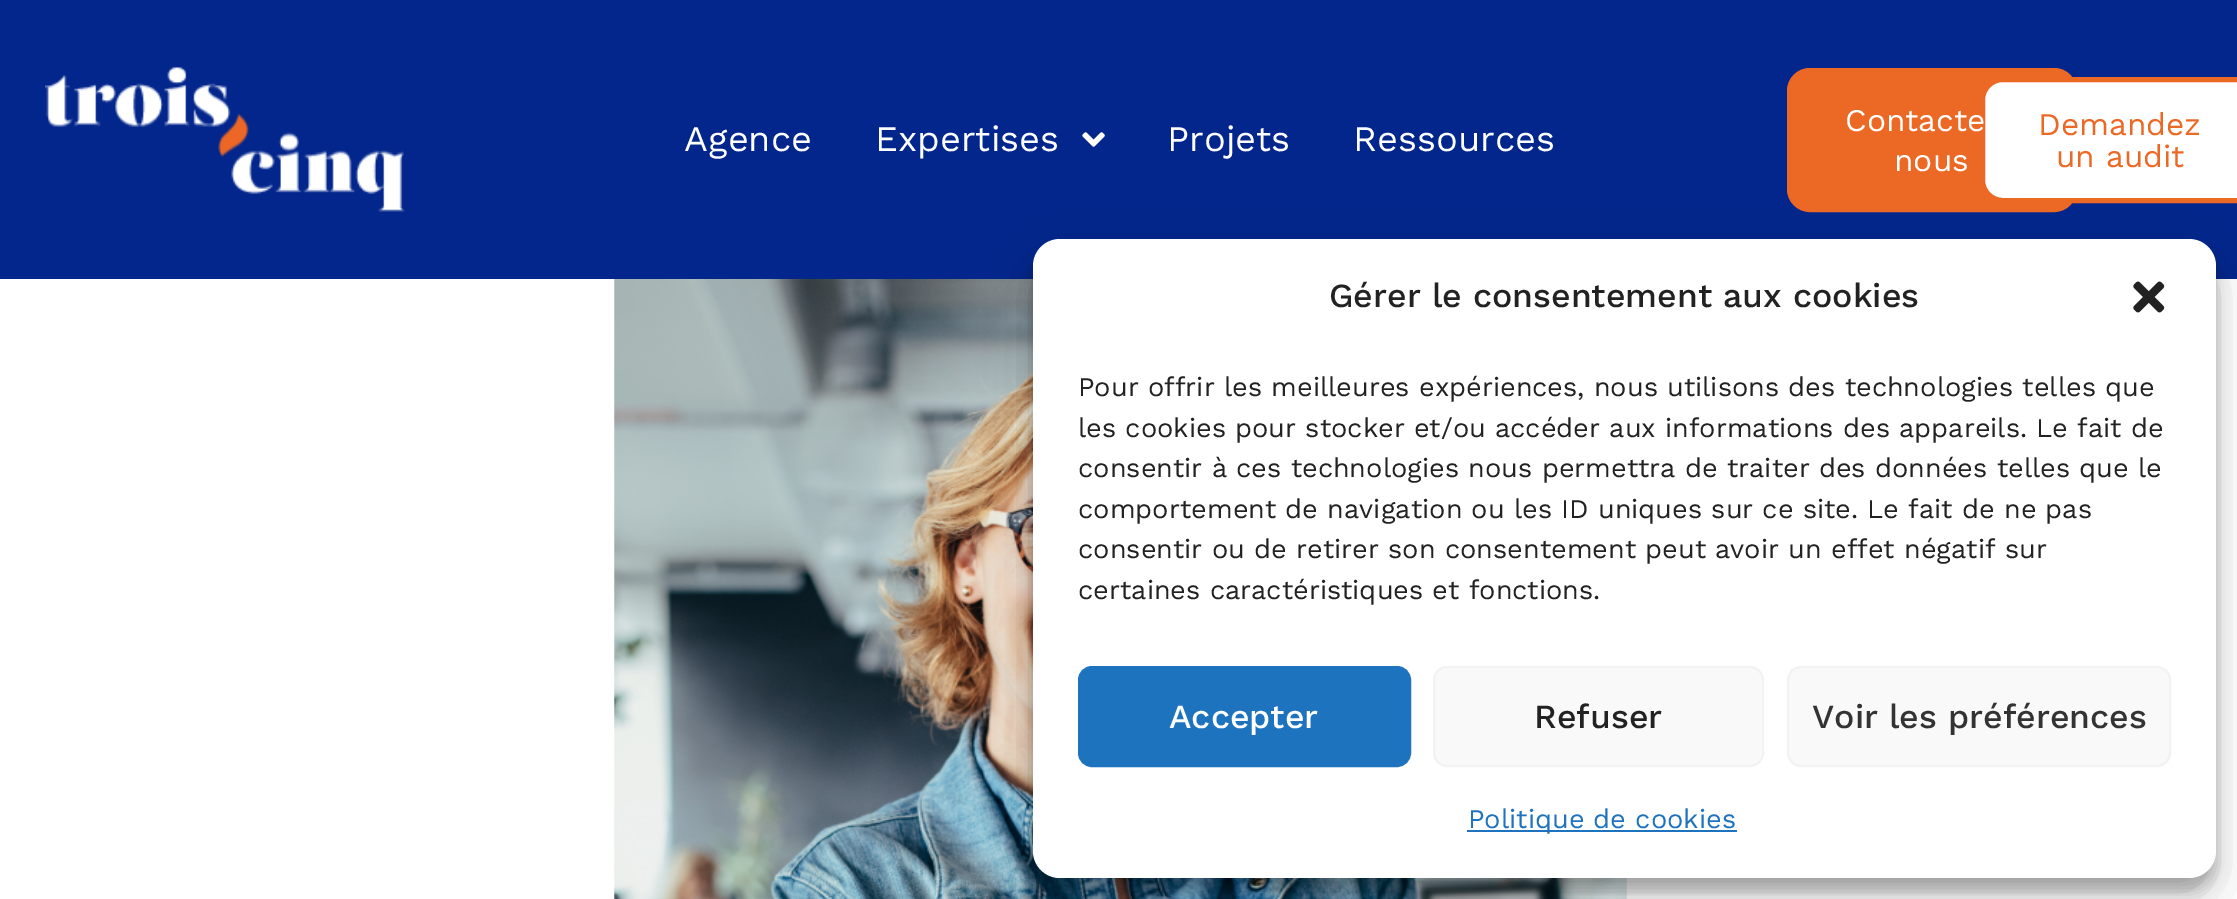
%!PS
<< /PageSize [2237 899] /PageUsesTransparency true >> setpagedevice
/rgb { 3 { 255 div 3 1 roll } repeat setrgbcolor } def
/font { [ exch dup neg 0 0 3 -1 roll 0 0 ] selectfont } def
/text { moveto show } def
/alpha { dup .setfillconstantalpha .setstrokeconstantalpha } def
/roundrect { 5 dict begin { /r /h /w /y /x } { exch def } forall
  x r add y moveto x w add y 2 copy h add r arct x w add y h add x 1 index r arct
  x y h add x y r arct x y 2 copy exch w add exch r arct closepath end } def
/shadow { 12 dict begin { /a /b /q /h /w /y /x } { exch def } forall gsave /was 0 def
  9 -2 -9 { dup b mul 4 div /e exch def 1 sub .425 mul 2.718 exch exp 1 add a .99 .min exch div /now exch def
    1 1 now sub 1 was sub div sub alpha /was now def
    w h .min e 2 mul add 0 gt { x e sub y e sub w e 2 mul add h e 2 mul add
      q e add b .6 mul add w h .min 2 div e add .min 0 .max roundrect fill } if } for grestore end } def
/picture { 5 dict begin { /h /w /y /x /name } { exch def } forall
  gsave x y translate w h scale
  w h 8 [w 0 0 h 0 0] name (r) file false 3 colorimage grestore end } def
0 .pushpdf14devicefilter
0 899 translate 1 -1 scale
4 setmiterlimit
255 255 255 rgb
0 0 2237 899 rectfill
3 38 140 rgb
0 0 2237 279 rectfill
(img_01.rgb) 45 67 360 145 picture
(img_02.rgb) 1082 132 23 15 picture
236 104 37 rgb
1789.5 70.5 285 139 20.5 roundrect gsave fill grestore
5 setlinewidth
stroke
255 255 255 rgb
1982.5 79.5 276 121 20.5 roundrect gsave fill grestore
236 104 37 rgb
stroke
(img_03.rgb) 614 279 1013 620 picture
0 0 0 rgb
1033 252 1183 639 27 7 0.23 shadow
1033 261 1183 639 27 22.5 0.19 shadow
255 255 255 rgb
1033 239 1183 639 27 roundrect fill
(img_04.rgb) 2133 281 32 32 picture
30 115 190 rgb
1079 667 331 99 13 roundrect gsave fill grestore
2 setlinewidth
stroke
249 249 249 rgb
1434 667 329 99 13 roundrect gsave fill grestore
242 242 242 rgb
stroke
249 249 249 rgb
1788 667 382 99 13 roundrect gsave fill grestore
242 242 242 rgb
stroke
30 115 190 rgb
1467 830 270 2 rectfill
/WorkSans-Regular 36 font
255 255 255 rgb
(Agence) 684 151 text
(Expertises) 875 151 text
(Projets) 1167 151 text
(Ressources) 1353 151 text
/WorkSans-Regular 31.5 font
(Contacte) 1845 131 text
(nous) 1894 171 text
236 104 37 rgb
(Demandez) 2038 135 text
(un audit) 2056 167 text
/WorkSans-Medium 33.75 font
34 34 34 rgb
(Gérer le consentement aux cookies) 1329 307 text
/WorkSans-Regular 27 font
(Pour offrir les meilleures expériences, nous utilisons des technologies telles que) 1078 396 text
(les cookies pour stocker et/ou accéder aux informations des appareils. Le fait de) 1078 437 text
(consentir à ces technologies nous permettra de traiter des données telles que le) 1078 477 text
(comportement de navigation ou les ID uniques sur ce site. Le fait de ne pas) 1078 518 text
(consentir ou de retirer son consentement peut avoir un effet négatif sur) 1078 558 text
(certaines caractéristiques et fonctions.) 1078 599 text
/WorkSans-Medium 33.75 font
255 255 255 rgb
(Accepter) 1169 728 text
34 34 34 rgb
(Refuser) 1534 728 text
51 51 51 rgb
(Voir les préférences) 1812 728 text
/WorkSans-Regular 27 font
30 115 190 rgb
(Politique de cookies) 1468 828 text
.poppdf14devicefilter showpage
